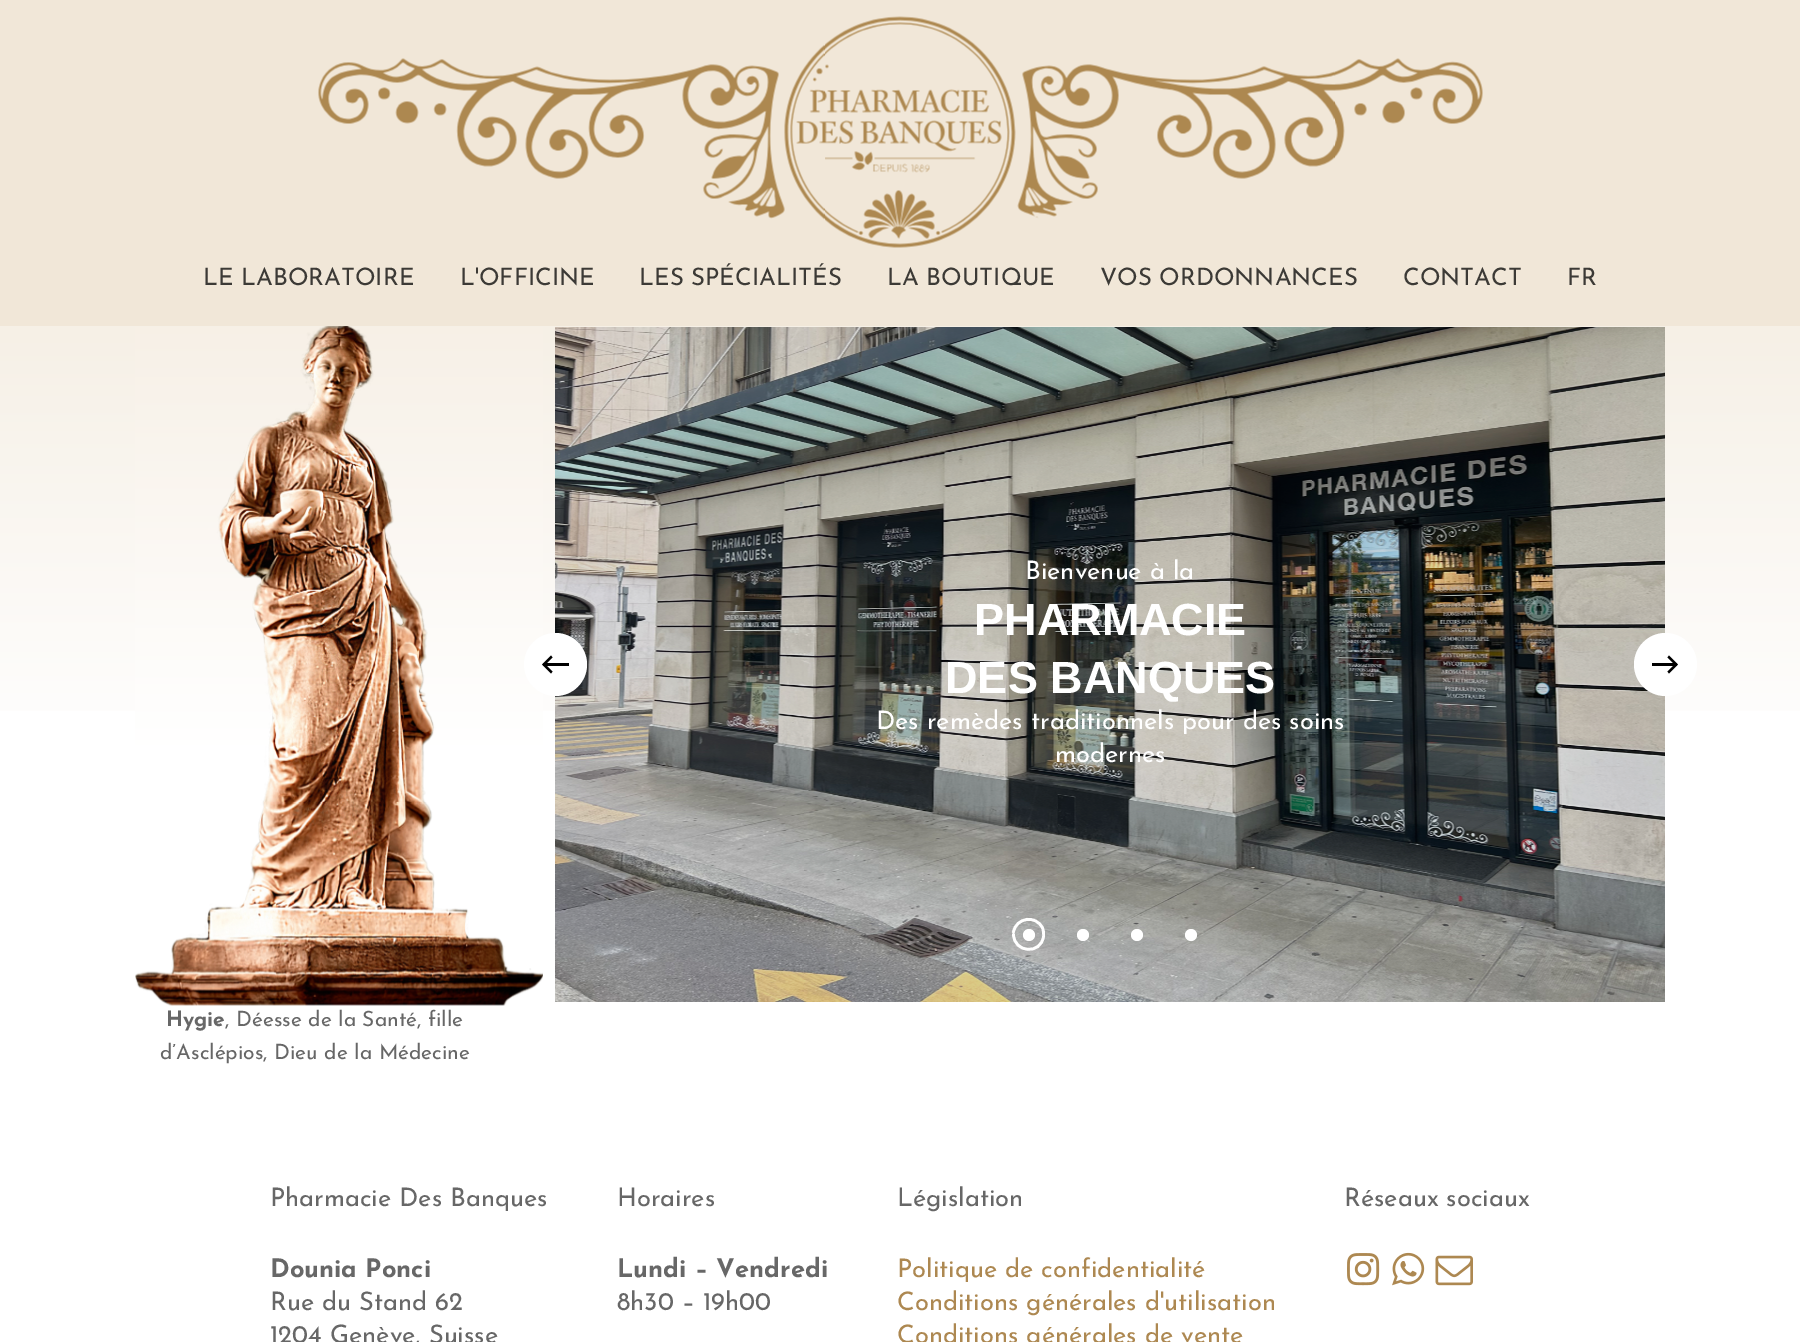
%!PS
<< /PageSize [1800 1342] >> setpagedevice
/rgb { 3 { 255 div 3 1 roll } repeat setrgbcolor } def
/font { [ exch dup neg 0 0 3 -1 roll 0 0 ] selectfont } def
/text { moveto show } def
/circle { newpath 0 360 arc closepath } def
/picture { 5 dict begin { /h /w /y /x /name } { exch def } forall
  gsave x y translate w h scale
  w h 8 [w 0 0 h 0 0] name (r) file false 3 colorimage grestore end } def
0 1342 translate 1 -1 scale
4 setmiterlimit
255 255 255 rgb
0 0 1800 1342 rectfill
241 231 216 rgb
0 0 1800 326 rectfill
(img_01.rgb) 318 16 1165 232 picture
gsave 0 326 moveto 1800 0 rlineto 0 385 rlineto -1800 0 rlineto closepath clip newpath
<< /ShadingType 2 /ColorSpace /DeviceRGB /Coords [900 0 900 1005] /Extend [true true] /Function << /FunctionType 3 /Domain [0 1] /Functions [<< /FunctionType 2 /Domain [0 1] /C0 [0.941 0.894 0.827] /C1 [1 1 1] /N 1 >> << /FunctionType 2 /Domain [0 1] /C0 [1 1 1] /C1 [1 1 1] /N 1 >>] /Bounds [0.75] /Encode [0 1 0 1] >> >> shfill grestore
(img_02.rgb) 135 326 408 680 picture
(img_03.rgb) 555 327 1110 675 picture
255 255 255 rgb
555.5 664.5 31.5 circle fill
0 0 0 rgb
542 664.5 moveto 9 9 rlineto 1.5 -2 rlineto -7 -7 rlineto 7 -7 rlineto -1.5 -2 rlineto closepath fill
543 663 26 3 rectfill
255 255 255 rgb
1665.5 664.5 31.5 circle fill
0 0 0 rgb
1678 664.5 moveto -9 -9 rlineto -1.5 2 rlineto 7 7 rlineto -7 7 rlineto 1.5 2 rlineto closepath fill
1652 663 25 3 rectfill
255 255 255 rgb
1029 935 6 circle fill
2.7 setlinewidth
1 setlinecap
1013.5 932 moveto 2.5 -14.5 22.5 -17.5 29 -4 rcurveto 1 2.5 1.5 5.5 1 8.5 rcurveto -2.5 18.5 -29.5 16.5 -30 -2 rcurveto stroke
1083 935 6 circle fill
1137 935 6 circle fill
1191 935 6 circle fill
(img_04.rgb) 1347 1253 33 33 picture
(img_05.rgb) 1392 1252 33 34 picture
(img_06.rgb) 1435 1255 38 31 picture
/JosefinSans-Regular 24 font
60 58 54 rgb
(LE LABORATOIRE) 203 285 text
(L'OFFICINE) 460 285 text
(LES SPÉCIALITÉS) 639 285 text
(LA BOUTIQUE) 887 285 text
(VOS ORDONNANCES) 1100 285 text
(CONTACT) 1403 285 text
(FR) 1567 285 text
/JosefinSans-Regular 25.5 font
255 255 255 rgb
(Bienvenue à la) 1025 579 text
/LiberationSans-Bold 45 font
(PHARMACIE) 974 635 text
(DES BANQUES) 945 693 text
/JosefinSans-Regular 25.5 font
(Des remèdes traditionnels pour des soins) 876 729 text
(modernes) 1055 762 text
/JosefinSans-Bold 21 font
103 103 103 rgb
(Hygie) 166 1026 text
/JosefinSans-Regular 21 font
(, Déesse de la Santé, fille) 225 1026 text
(d’Asclépios, Dieu de la Médecine) 160 1059 text
/JosefinSans-Regular 25.5 font
(Pharmacie Des Banques) 270 1206 text
/JosefinSans-Bold 25.5 font
(Dounia Ponci) 270 1277 text
/JosefinSans-Regular 25.5 font
(Rue du Stand 62) 270 1310 text
(1204 Genève, Suisse) 270 1343 text
(Horaires) 617 1206 text
/JosefinSans-Bold 25.5 font
(Lundi – Vendredi) 617 1277 text
/JosefinSans-Regular 25.5 font
(8h30 – 19h00) 617 1310 text
(Législation) 897 1206 text
173 136 81 rgb
(Politique de confidentialité) 897 1277 text
(Conditions générales d'utilisation) 897 1310 text
(Conditions générales de vente) 897 1343 text
103 103 103 rgb
(Réseaux sociaux) 1344 1206 text
showpage
